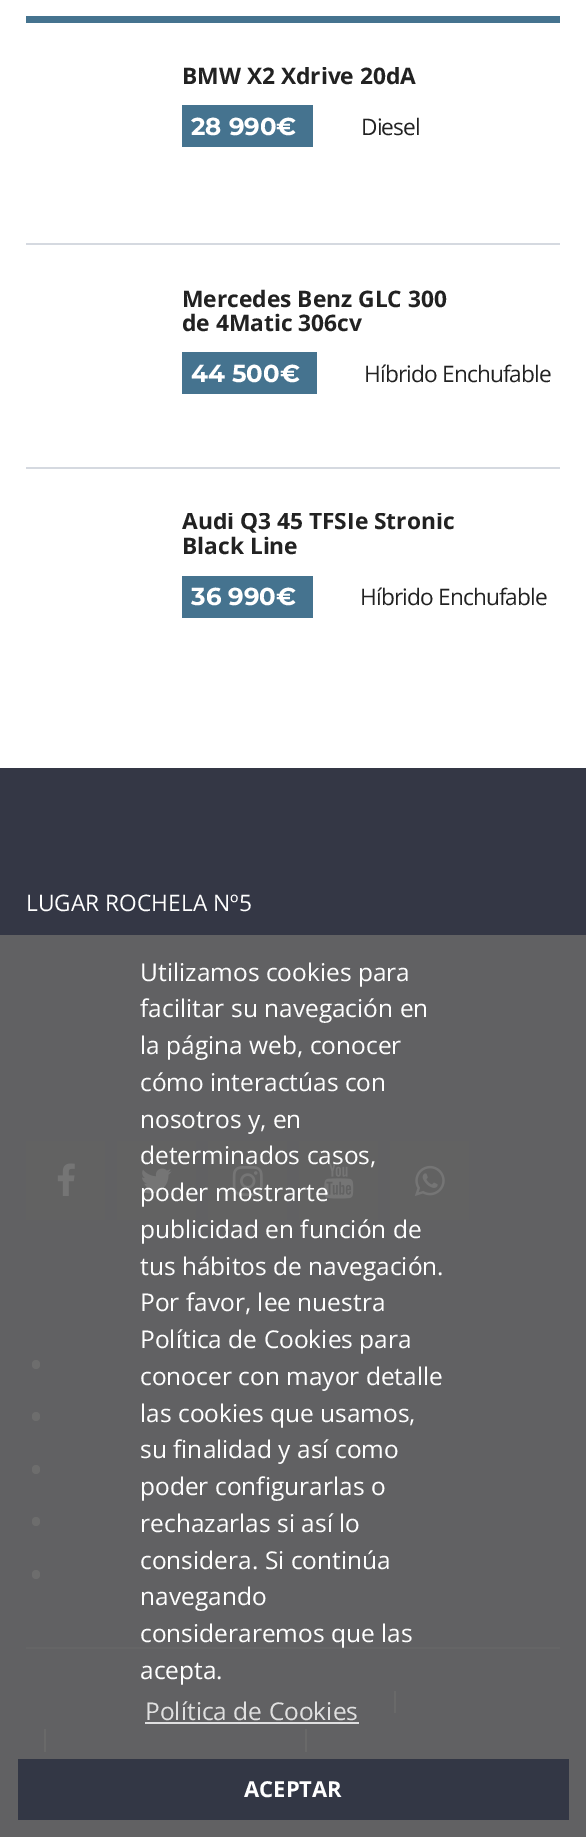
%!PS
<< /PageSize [586 1837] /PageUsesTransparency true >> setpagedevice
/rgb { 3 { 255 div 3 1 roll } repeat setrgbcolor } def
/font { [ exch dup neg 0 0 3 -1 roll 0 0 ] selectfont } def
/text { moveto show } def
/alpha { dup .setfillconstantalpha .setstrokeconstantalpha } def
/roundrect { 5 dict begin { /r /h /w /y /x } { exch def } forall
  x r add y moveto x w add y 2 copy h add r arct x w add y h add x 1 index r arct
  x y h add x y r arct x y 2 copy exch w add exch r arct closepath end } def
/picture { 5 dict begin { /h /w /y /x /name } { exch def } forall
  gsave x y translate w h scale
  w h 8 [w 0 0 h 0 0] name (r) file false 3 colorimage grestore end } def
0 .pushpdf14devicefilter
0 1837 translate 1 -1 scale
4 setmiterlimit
255 255 255 rgb
0 0 586 1837 rectfill
69 115 143 rgb
26 16 534 7 rectfill
182 105 131 42 rectfill
213 217 224 rgb
26 243 534 2 rectfill
69 115 143 rgb
182 352 135 42 rectfill
213 217 224 rgb
26 467 534 2 rectfill
69 115 143 rgb
182 576 131 42 rectfill
52 55 69 rgb
0 768 586 1069 rectfill
59 61 63 rgb
26 1141 79 79 rectfill
(img_01.rgb) 57 1163 18 33 picture
117 1141 79 79 rectfill
(img_02.rgb) 141 1168 31 26 picture
208 1141 79 79 rectfill
(img_03.rgb) 232 1166 31 30 picture
299 1141 79 79 rectfill
(img_04.rgb) 324 1163 30 36 picture
390 1141 79 79 rectfill
(img_05.rgb) 414 1165 31 31 picture
170 170 170 rgb
32 1360 8 9 4 roundrect fill
32 1412 8 9 4 roundrect fill
32 1465 8 9 4 roundrect fill
32 1517 8 9 4 roundrect fill
32 1570 8 9 4 roundrect fill
93 95 106 rgb
26 1647 534 2 rectfill
136 136 136 rgb
394 1691 2 22 rectfill
44 1729 2 23 rectfill
305 1729 2 23 rectfill
0.9 alpha
102 102 102 rgb
0 935 586 902 rectfill
1 alpha
223 223 224 rgb
145 1722 214 2 rectfill
51 55 69 rgb
18 1759 551 61 rectfill
gsave
182 67 378 80 rectclip
/OpenSans-Bold 22.75 font
34 34 34 rgb
(BMW X2 Xdrive 20dA) 182 84 text
grestore
/Montserrat-Bold 24.5 font
255 255 255 rgb
(28 990€) 191 135 text
/OpenSans-Regular 22.75 font
34 34 34 rgb
361 135 moveto -0.9 0 (Diesel) ashow
/OpenSans-Bold 22.75 font
(Mercedes Benz GLC 300) 182 307 text
(de 4Matic 306cv) 182 331 text
/Montserrat-Bold 24.5 font
255 255 255 rgb
(44 500€) 191 382 text
/OpenSans-Regular 22.75 font
34 34 34 rgb
364 382 moveto -0.9 0 (Híbrido Enchufable) ashow
gsave
182 513 378 105 rectclip
/OpenSans-Bold 22.75 font
(Audi Q3 45 TFSIe Stronic) 182 529 text
grestore
/OpenSans-Bold 22.75 font
(Black Line) 182 554 text
/Montserrat-Bold 24.5 font
255 255 255 rgb
(36 990€) 191 605 text
/OpenSans-Regular 22.75 font
34 34 34 rgb
360 605 moveto -0.9 0 (Híbrido Enchufable) ashow
255 255 255 rgb
(LUGAR ROCHELA Nº5) 26 911 text
/OpenSans-Regular 24.5 font
(Utilizamos cookies para) 140 981 text
(facilitar su navegación en) 140 1017 text
(la página web, conocer) 140 1054 text
(cómo interactúas con) 140 1091 text
(nosotros y, en) 140 1128 text
(determinados casos,) 140 1164 text
(poder mostrarte) 140 1201 text
(publicidad en función de) 140 1238 text
(tus hábitos de navegación.) 140 1275 text
(Por favor, lee nuestra) 140 1311 text
(Política de Cookies para) 140 1348 text
(conocer con mayor detalle) 140 1385 text
(las cookies que usamos,) 140 1422 text
(su finalidad y así como) 140 1458 text
(poder configurarlas o) 140 1495 text
(rechazarlas si así lo) 140 1532 text
(considera. Si continúa) 140 1569 text
(navegando) 140 1605 text
(consideraremos que las) 140 1642 text
(acepta.) 140 1679 text
224 224 224 rgb
(Política de Cookies) 145 1720 text
/OpenSans-Bold 22 font
255 255 255 rgb
(ACEPTAR) 244 1797 text
.poppdf14devicefilter showpage
